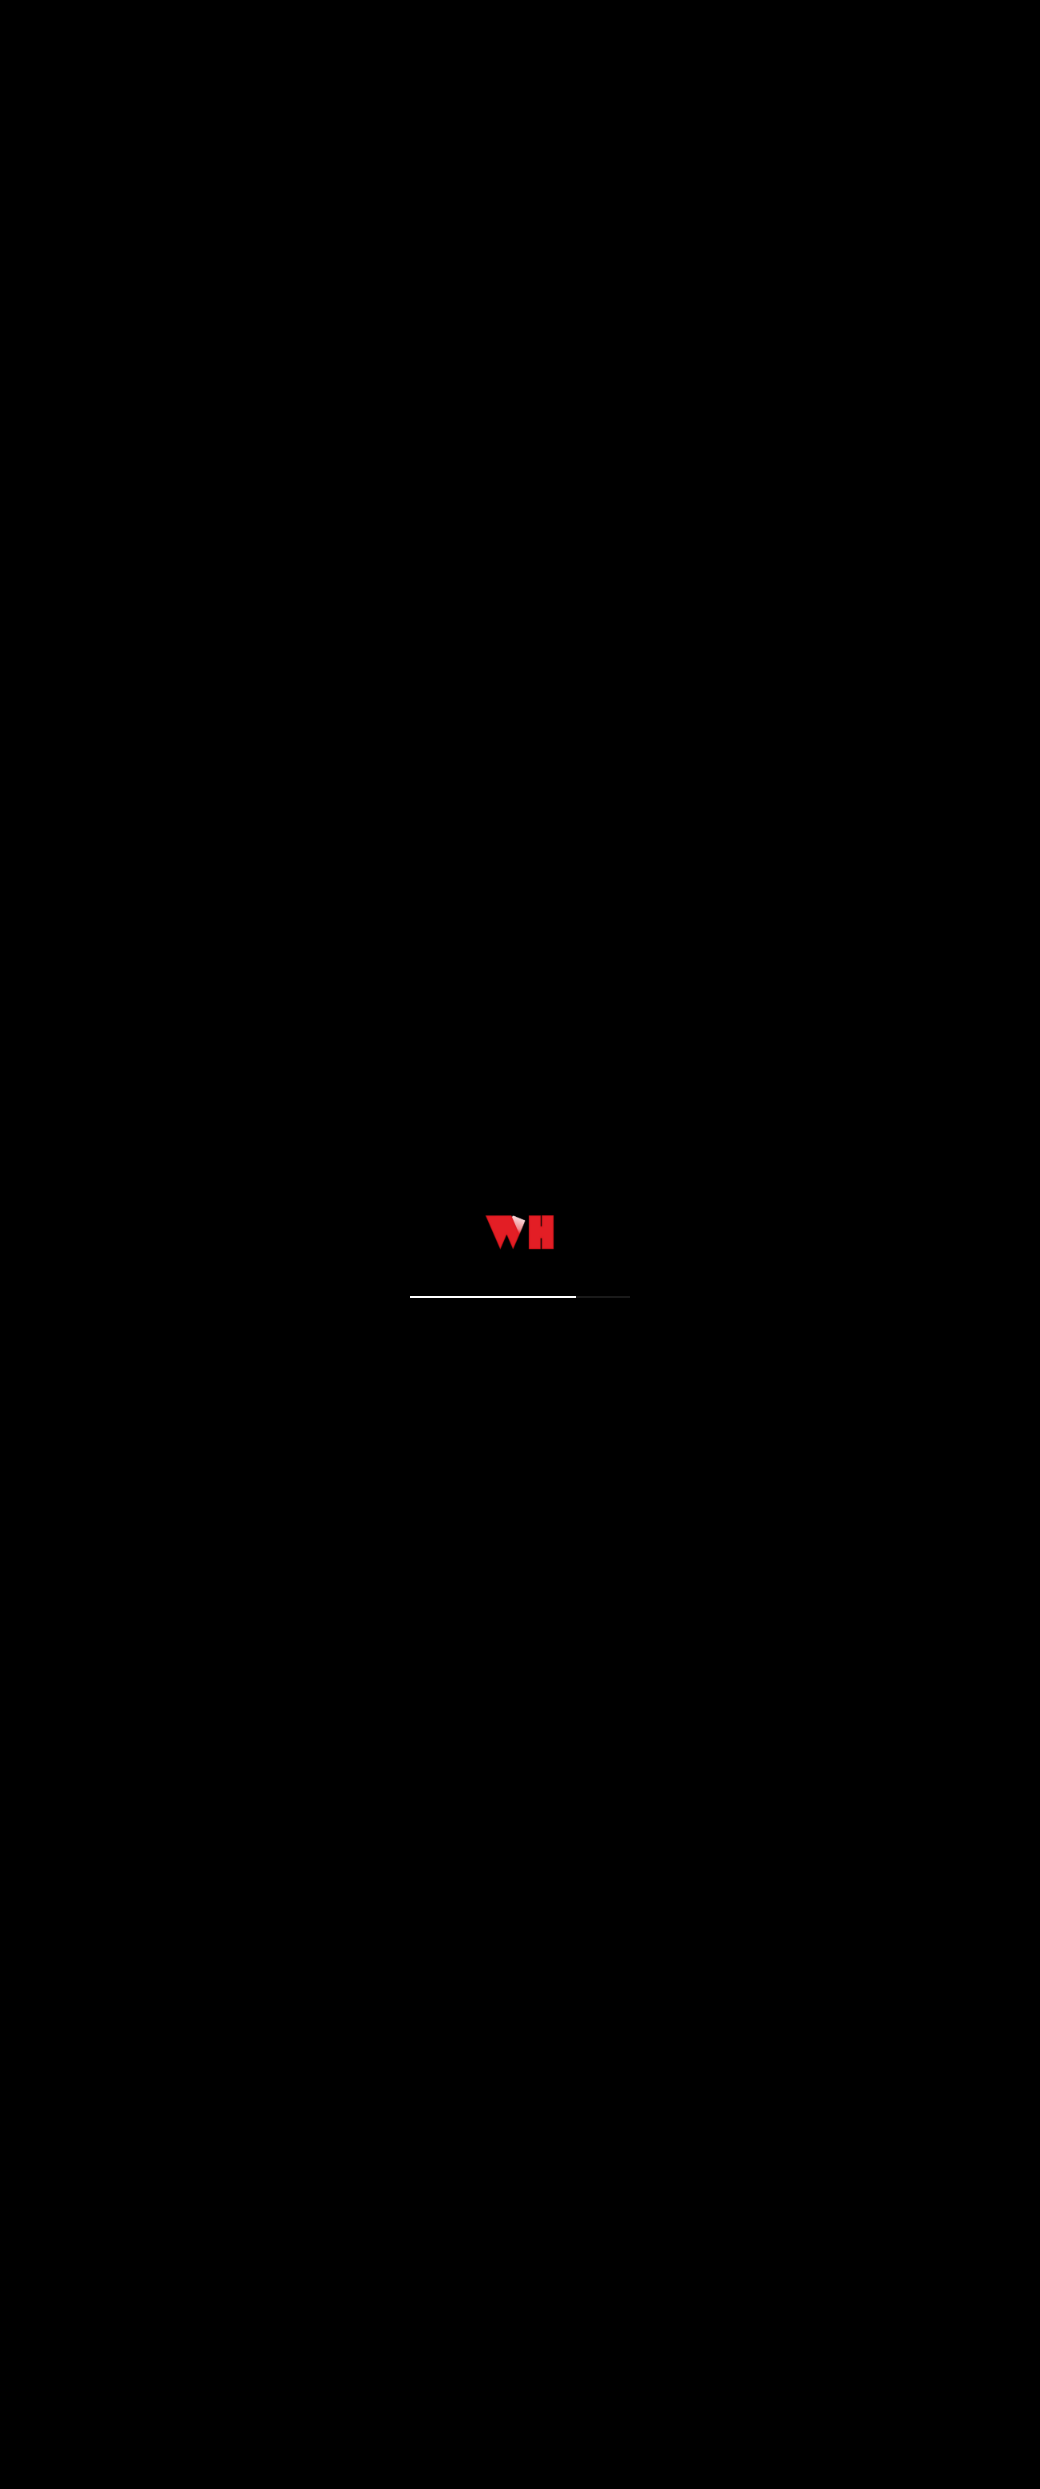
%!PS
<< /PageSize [1040 2489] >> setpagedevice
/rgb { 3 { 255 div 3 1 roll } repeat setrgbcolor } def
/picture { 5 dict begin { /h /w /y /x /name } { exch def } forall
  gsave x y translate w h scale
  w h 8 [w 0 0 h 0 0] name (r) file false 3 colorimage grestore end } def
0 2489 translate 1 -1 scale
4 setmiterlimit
0 0 0 rgb
0 0 1040 2489 rectfill
(img_01.rgb) 485 1215 70 35 picture
26 26 26 rgb
576 1296 54 2 rectfill
255 255 255 rgb
410 1296 166 2 rectfill
showpage
